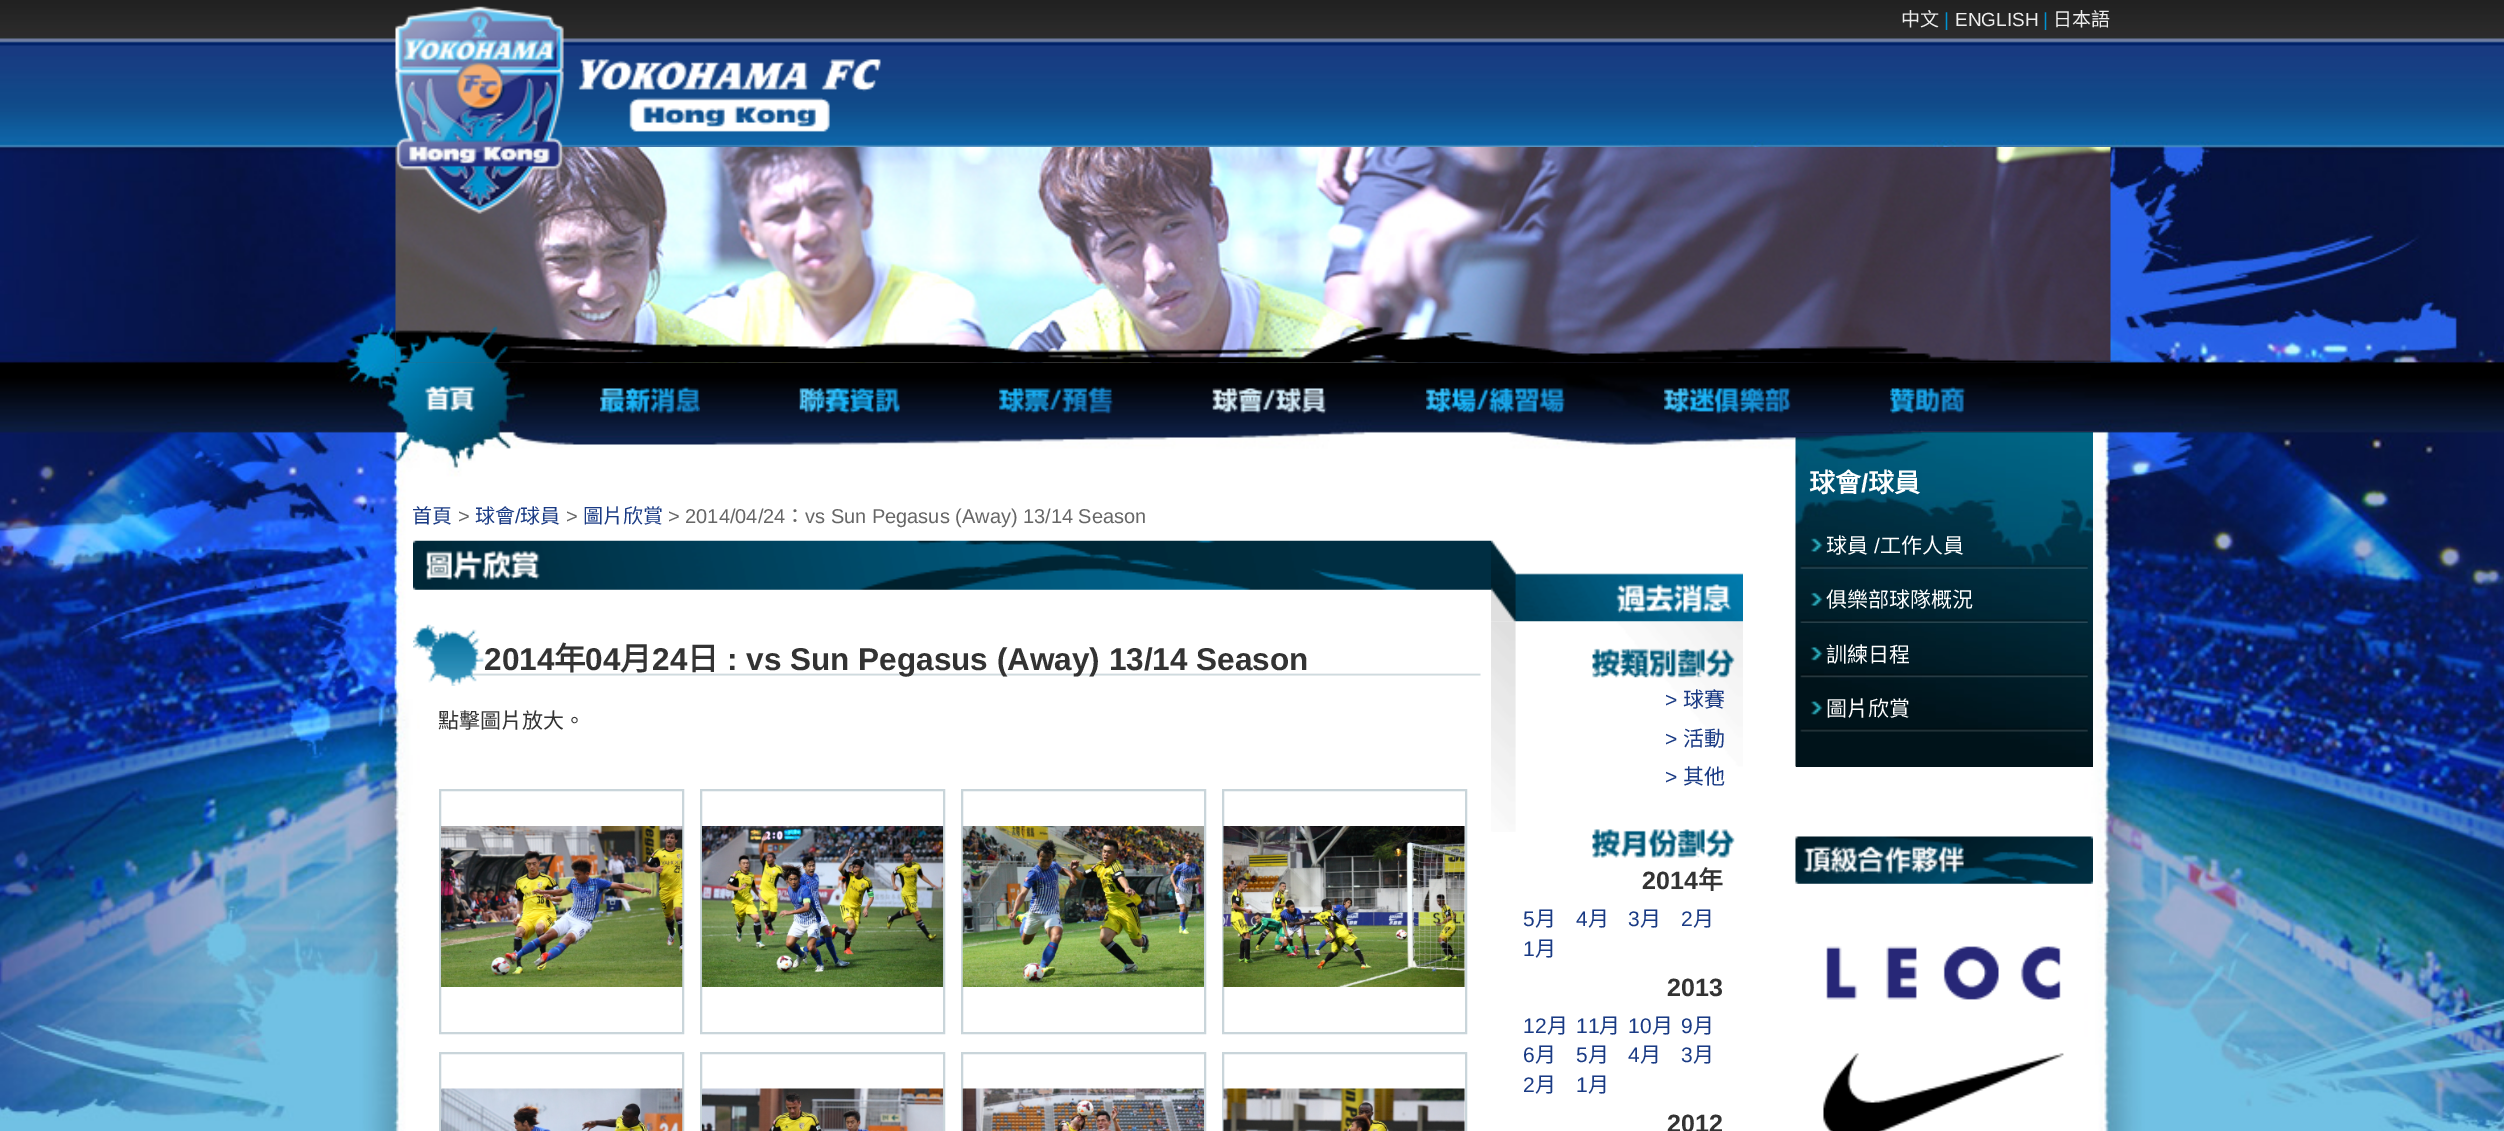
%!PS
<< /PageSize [2504 1131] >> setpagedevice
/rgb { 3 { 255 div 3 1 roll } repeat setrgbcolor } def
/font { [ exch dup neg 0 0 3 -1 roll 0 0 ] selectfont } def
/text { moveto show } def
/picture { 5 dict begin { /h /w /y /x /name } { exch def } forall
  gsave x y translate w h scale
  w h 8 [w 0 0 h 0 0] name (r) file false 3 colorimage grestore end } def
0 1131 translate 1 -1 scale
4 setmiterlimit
255 255 255 rgb
0 0 2504 1131 rectfill
(img_01.rgb) 0 0 2504 1131 picture
(img_02.rgb) 395 147 1716 216 picture
(img_03.rgb) 395 325 1716 38 picture
(img_04.rgb) 395 6 486 208 picture
(img_05.rgb) 424 386 51 26 picture
(img_06.rgb) 600 386 100 28 picture
(img_07.rgb) 799 387 101 27 picture
(img_08.rgb) 999 386 114 28 picture
(img_09.rgb) 1212 387 115 27 picture
(img_10.rgb) 1426 387 139 27 picture
(img_11.rgb) 1664 387 127 27 picture
(img_12.rgb) 1890 386 76 28 picture
(img_13.rgb) 413 540 1078 50 picture
(img_14.rgb) 413 624 1068 62 picture
201 213 218 rgb
2 setlinewidth
440 790 243 243 rectstroke
(img_15.rgb) 441 826 242 161 picture
701 790 243 243 rectstroke
(img_16.rgb) 701 826 243 161 picture
962 790 243 243 rectstroke
(img_17.rgb) 962 826 242 161 picture
1223 790 243 243 rectstroke
(img_18.rgb) 1223 826 242 161 picture
440 1053 243 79 rectstroke
(img_19.rgb) 441 1088 242 43 picture
701 1053 243 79 rectstroke
(img_20.rgb) 701 1088 243 43 picture
962 1053 243 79 rectstroke
(img_21.rgb) 962 1088 242 43 picture
1223 1053 243 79 rectstroke
(img_22.rgb) 1223 1088 242 43 picture
(img_24.rgb) 1491 621 252 211 picture
(img_23.rgb) 1491 540 252 82 picture
(img_25.rgb) 1592 648 143 30 picture
(img_26.rgb) 1592 829 143 29 picture
0 19 26 rgb
1796 432 297 335 rectfill
(img_27.rgb) 1795 432 298 335 picture
(img_28.rgb) 1800 538 288 31 picture
(img_29.rgb) 1800 592 288 31 picture
(img_30.rgb) 1800 647 288 31 picture
(img_31.rgb) 1800 701 288 31 picture
(img_32.rgb) 1795 836 298 48 picture
(img_33.rgb) 1826 946 235 54 picture
(img_34.rgb) 1823 1053 241 78 picture
/NotoSansCJKTC-Regular 19 font
238 238 238 rgb
(中文) 1901 26 text
/LiberationSans-Regular 19 font
0 146 209 rgb
(|) 1944 26 text
238 238 238 rgb
(ENGLISH) 1955 26 text
0 146 209 rgb
(|) 2043 26 text
/NotoSansCJKTC-Regular 19 font
238 238 238 rgb
(日本語) 2053 26 text
/NotoSansCJKTC-Regular 20 font
25 58 132 rgb
(首頁) 412 523 text
/LiberationSans-Regular 20 font
102 102 102 rgb
(>) 458 523 text
/NotoSansCJKTC-Regular 20 font
25 58 132 rgb
(球會) 475 523 text
/LiberationSans-Regular 20 font
(/) 515 523 text
/NotoSansCJKTC-Regular 20 font
(球員) 520 523 text
/LiberationSans-Regular 20 font
102 102 102 rgb
(>) 566 523 text
/NotoSansCJKTC-Regular 20 font
25 58 132 rgb
(圖片欣賞) 583 523 text
/LiberationSans-Regular 20 font
102 102 102 rgb
(> 2014/04/24) 668 523 text
/NotoSansCJKTC-Regular 20 font
(：) 785 523 text
/LiberationSans-Regular 20 font
(vs Sun Pegasus \(Away\) 13/14 Season) 805 523 text
/LiberationSans-Bold 31.5 font
51 51 51 rgb
(2014) 484 670 text
/NotoSansCJKTC-Bold 31.5 font
(年) 554 670 text
/LiberationSans-Bold 31.5 font
(04) 585 670 text
/NotoSansCJKTC-Bold 31.5 font
(月) 620 670 text
/LiberationSans-Bold 31.5 font
(24) 652 670 text
/NotoSansCJKTC-Bold 31.5 font
(日) 687 670 text
/LiberationSans-Bold 31.5 font
(: vs Sun Pegasus \(Away\) 13/14 Season) 727 670 text
/NotoSansCJKTC-Regular 21 font
(點擊圖片放大。) 438 728 text
/LiberationSans-Regular 21 font
25 58 132 rgb
(>) 1665 707 text
/NotoSansCJKTC-Regular 21 font
(球賽) 1683 707 text
/LiberationSans-Regular 21 font
(>) 1665 746 text
/NotoSansCJKTC-Regular 21 font
(活動) 1683 746 text
/LiberationSans-Regular 21 font
(>) 1665 784 text
/NotoSansCJKTC-Regular 21 font
(其他) 1683 784 text
/LiberationSans-Bold 25 font
51 51 51 rgb
(2014) 1642 889 text
/NotoSansCJKTC-Bold 25 font
(年) 1698 889 text
/LiberationSans-Regular 21 font
25 58 132 rgb
(5) 1523 926 text
/NotoSansCJKTC-Regular 21 font
(月) 1535 926 text
/LiberationSans-Regular 21 font
(4) 1576 926 text
/NotoSansCJKTC-Regular 21 font
(月) 1588 926 text
/LiberationSans-Regular 21 font
(3) 1628 926 text
/NotoSansCJKTC-Regular 21 font
(月) 1640 926 text
/LiberationSans-Regular 21 font
(2) 1681 926 text
/NotoSansCJKTC-Regular 21 font
(月) 1693 926 text
/LiberationSans-Regular 21 font
(1) 1523 956 text
/NotoSansCJKTC-Regular 21 font
(月) 1535 956 text
/LiberationSans-Bold 25 font
51 51 51 rgb
(2013) 1667 996 text
/LiberationSans-Regular 21 font
25 58 132 rgb
(12) 1523 1033 text
/NotoSansCJKTC-Regular 21 font
(月) 1547 1033 text
/LiberationSans-Regular 21 font
(11) 1576 1033 text
/NotoSansCJKTC-Regular 21 font
(月) 1599 1033 text
/LiberationSans-Regular 21 font
(10) 1628 1033 text
/NotoSansCJKTC-Regular 21 font
(月) 1652 1033 text
/LiberationSans-Regular 21 font
(9) 1681 1033 text
/NotoSansCJKTC-Regular 21 font
(月) 1693 1033 text
/LiberationSans-Regular 21 font
(6) 1523 1062 text
/NotoSansCJKTC-Regular 21 font
(月) 1535 1062 text
/LiberationSans-Regular 21 font
(5) 1576 1062 text
/NotoSansCJKTC-Regular 21 font
(月) 1588 1062 text
/LiberationSans-Regular 21 font
(4) 1628 1062 text
/NotoSansCJKTC-Regular 21 font
(月) 1640 1062 text
/LiberationSans-Regular 21 font
(3) 1681 1062 text
/NotoSansCJKTC-Regular 21 font
(月) 1693 1062 text
/LiberationSans-Regular 21 font
(2) 1523 1092 text
/NotoSansCJKTC-Regular 21 font
(月) 1535 1092 text
/LiberationSans-Regular 21 font
(1) 1576 1092 text
/NotoSansCJKTC-Regular 21 font
(月) 1588 1092 text
/LiberationSans-Bold 25 font
51 51 51 rgb
(2012) 1667 1132 text
/NotoSansCJKTC-Bold 26 font
255 255 255 rgb
(球會) 1809 492 text
/LiberationSans-Bold 26 font
(/) 1861 492 text
/NotoSansCJKTC-Bold 26 font
(球員) 1868 492 text
/NotoSansCJKTC-Regular 21 font
(球員) 1826 553 text
/LiberationSans-Regular 21 font
(/) 1874 553 text
/NotoSansCJKTC-Regular 21 font
(工作人員) 1880 553 text
(俱樂部球隊概況) 1826 607 text
(訓練日程) 1826 662 text
(圖片欣賞) 1826 716 text
showpage
